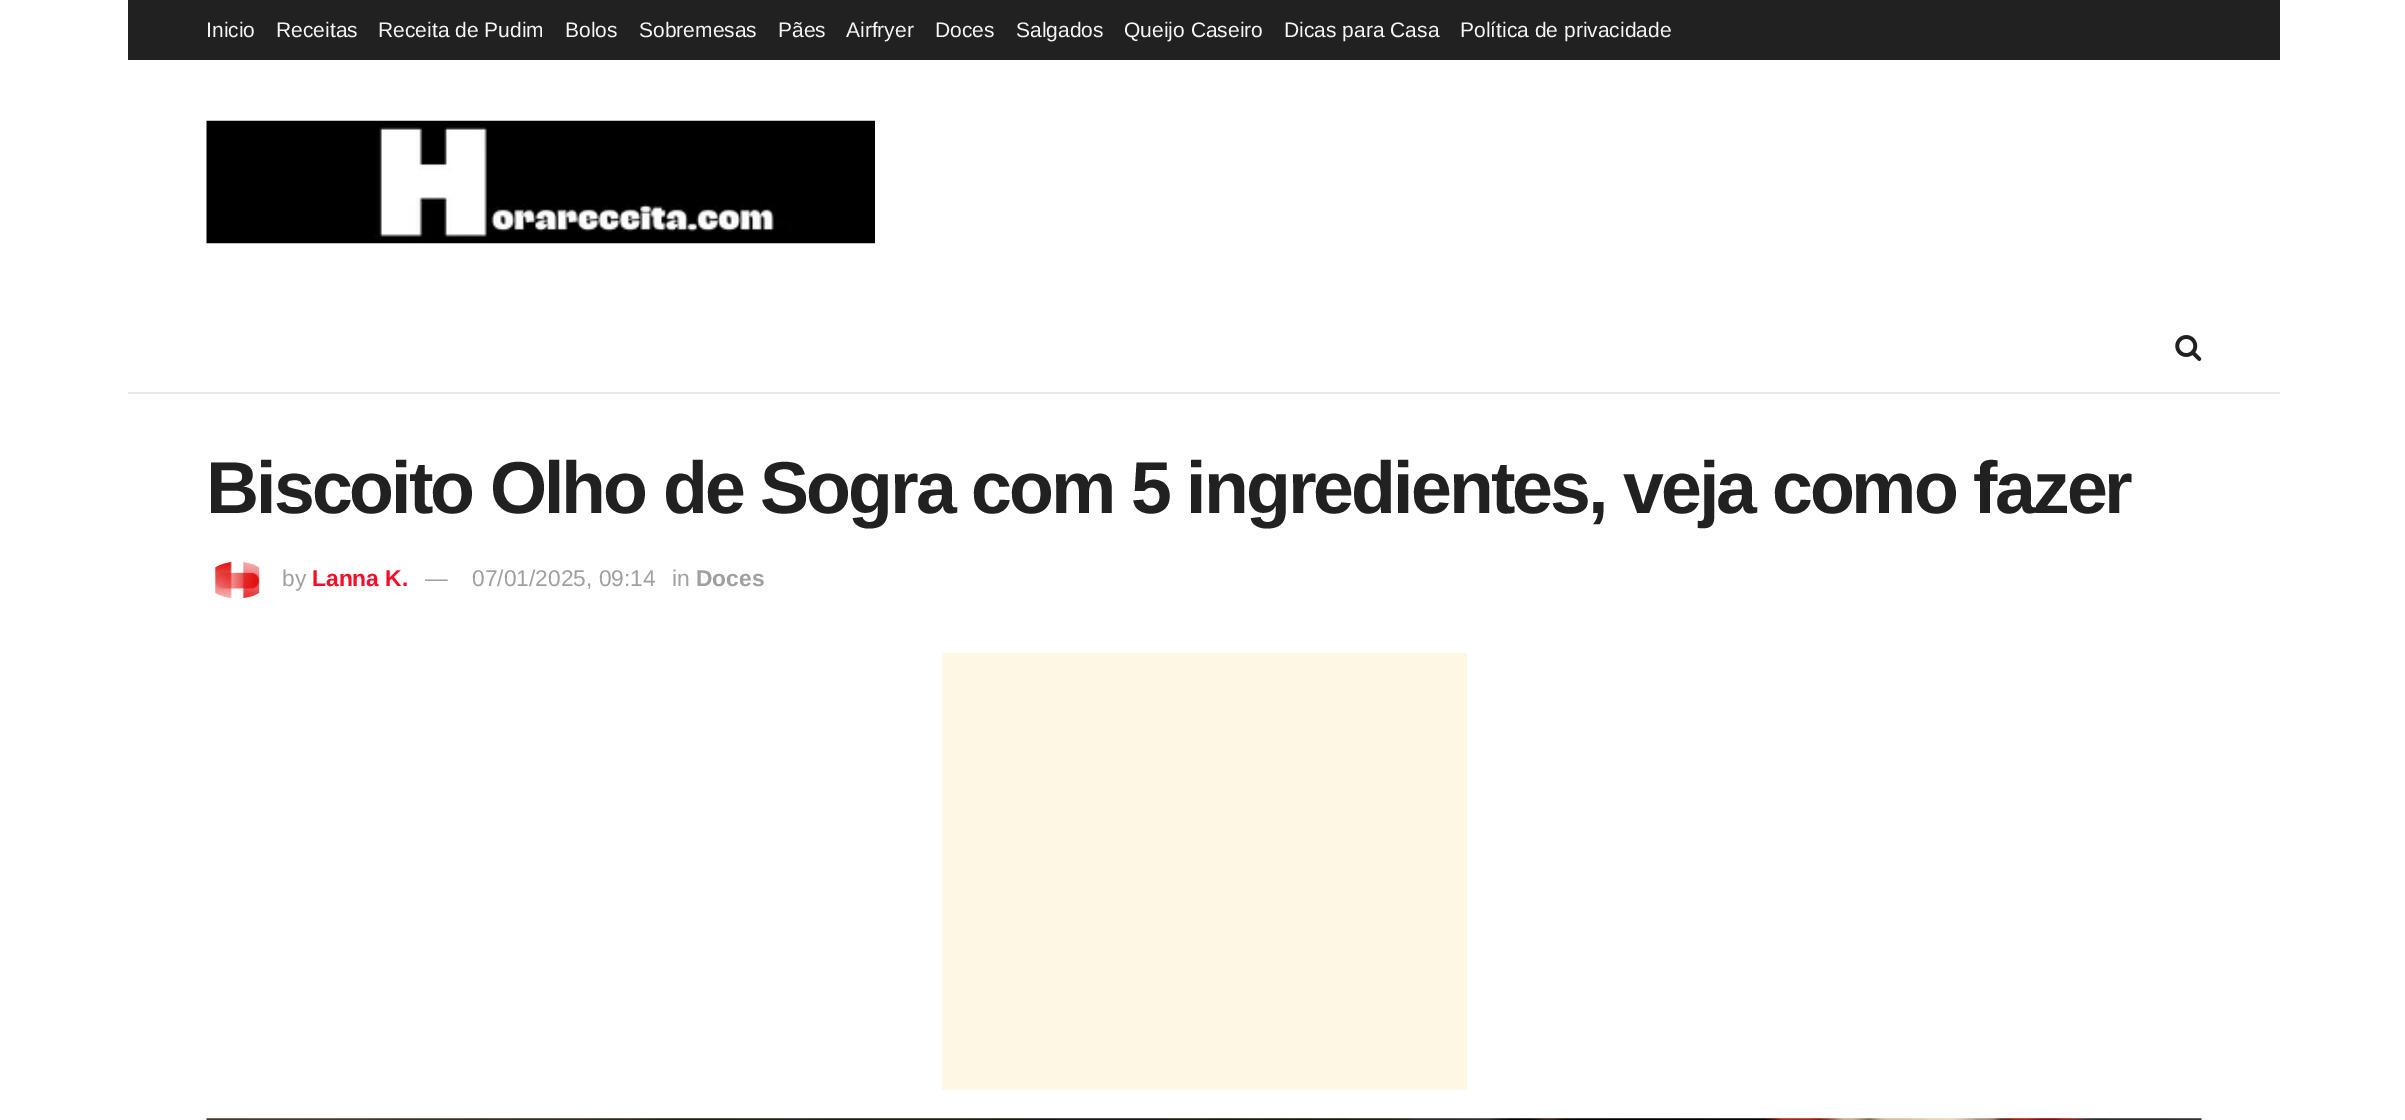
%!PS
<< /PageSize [2405 1120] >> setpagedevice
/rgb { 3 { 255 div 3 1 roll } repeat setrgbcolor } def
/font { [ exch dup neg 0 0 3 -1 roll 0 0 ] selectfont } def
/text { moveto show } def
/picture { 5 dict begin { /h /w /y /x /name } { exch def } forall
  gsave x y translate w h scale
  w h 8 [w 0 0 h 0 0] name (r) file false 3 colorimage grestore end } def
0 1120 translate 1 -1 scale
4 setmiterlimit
255 255 255 rgb
0 0 2405 1120 rectfill
33 33 33 rgb
128 0 2152 60 rectfill
(img_01.rgb) 206 120 669 124 picture
232 232 232 rgb
128 392 2152 2 rectfill
(img_02.rgb) 2175 335 27 26 picture
(img_03.rgb) 215 562 45 36 picture
252 248 227 rgb
942 653 525 437 rectfill
(img_04.rgb) 206 1118 1996 2 picture
/LiberationSans-Regular 21 font
245 245 245 rgb
(Inicio) 206 37 text
(Receitas) 276 37 text
(Receita de Pudim) 378 37 text
(Bolos) 565 37 text
(Sobremesas) 639 37 text
(Pães) 778 37 text
(Airfryer) 846 37 text
(Doces) 935 37 text
(Salgados) 1016 37 text
(Queijo Caseiro) 1124 37 text
(Dicas para Casa) 1284 37 text
(Política de privacidade) 1460 37 text
/LiberationSans-Bold 73.5 font
33 33 33 rgb
206 513 moveto -2.95 0 (Biscoito Olho de Sogra com 5 ingredientes, veja como fazer) ashow
/LiberationSans-Regular 22.75 font
160 160 160 rgb
(by) 282 586 text
/LiberationSans-Bold 22.75 font
247 13 40 rgb
(Lanna K.) 312 586 text
/LiberationSans-Regular 22.75 font
160 160 160 rgb
(—) 425 586 text
(07/01/2025, 09:14) 472 586 text
(in) 672 586 text
/LiberationSans-Bold 22.75 font
(Doces) 696 586 text
showpage
